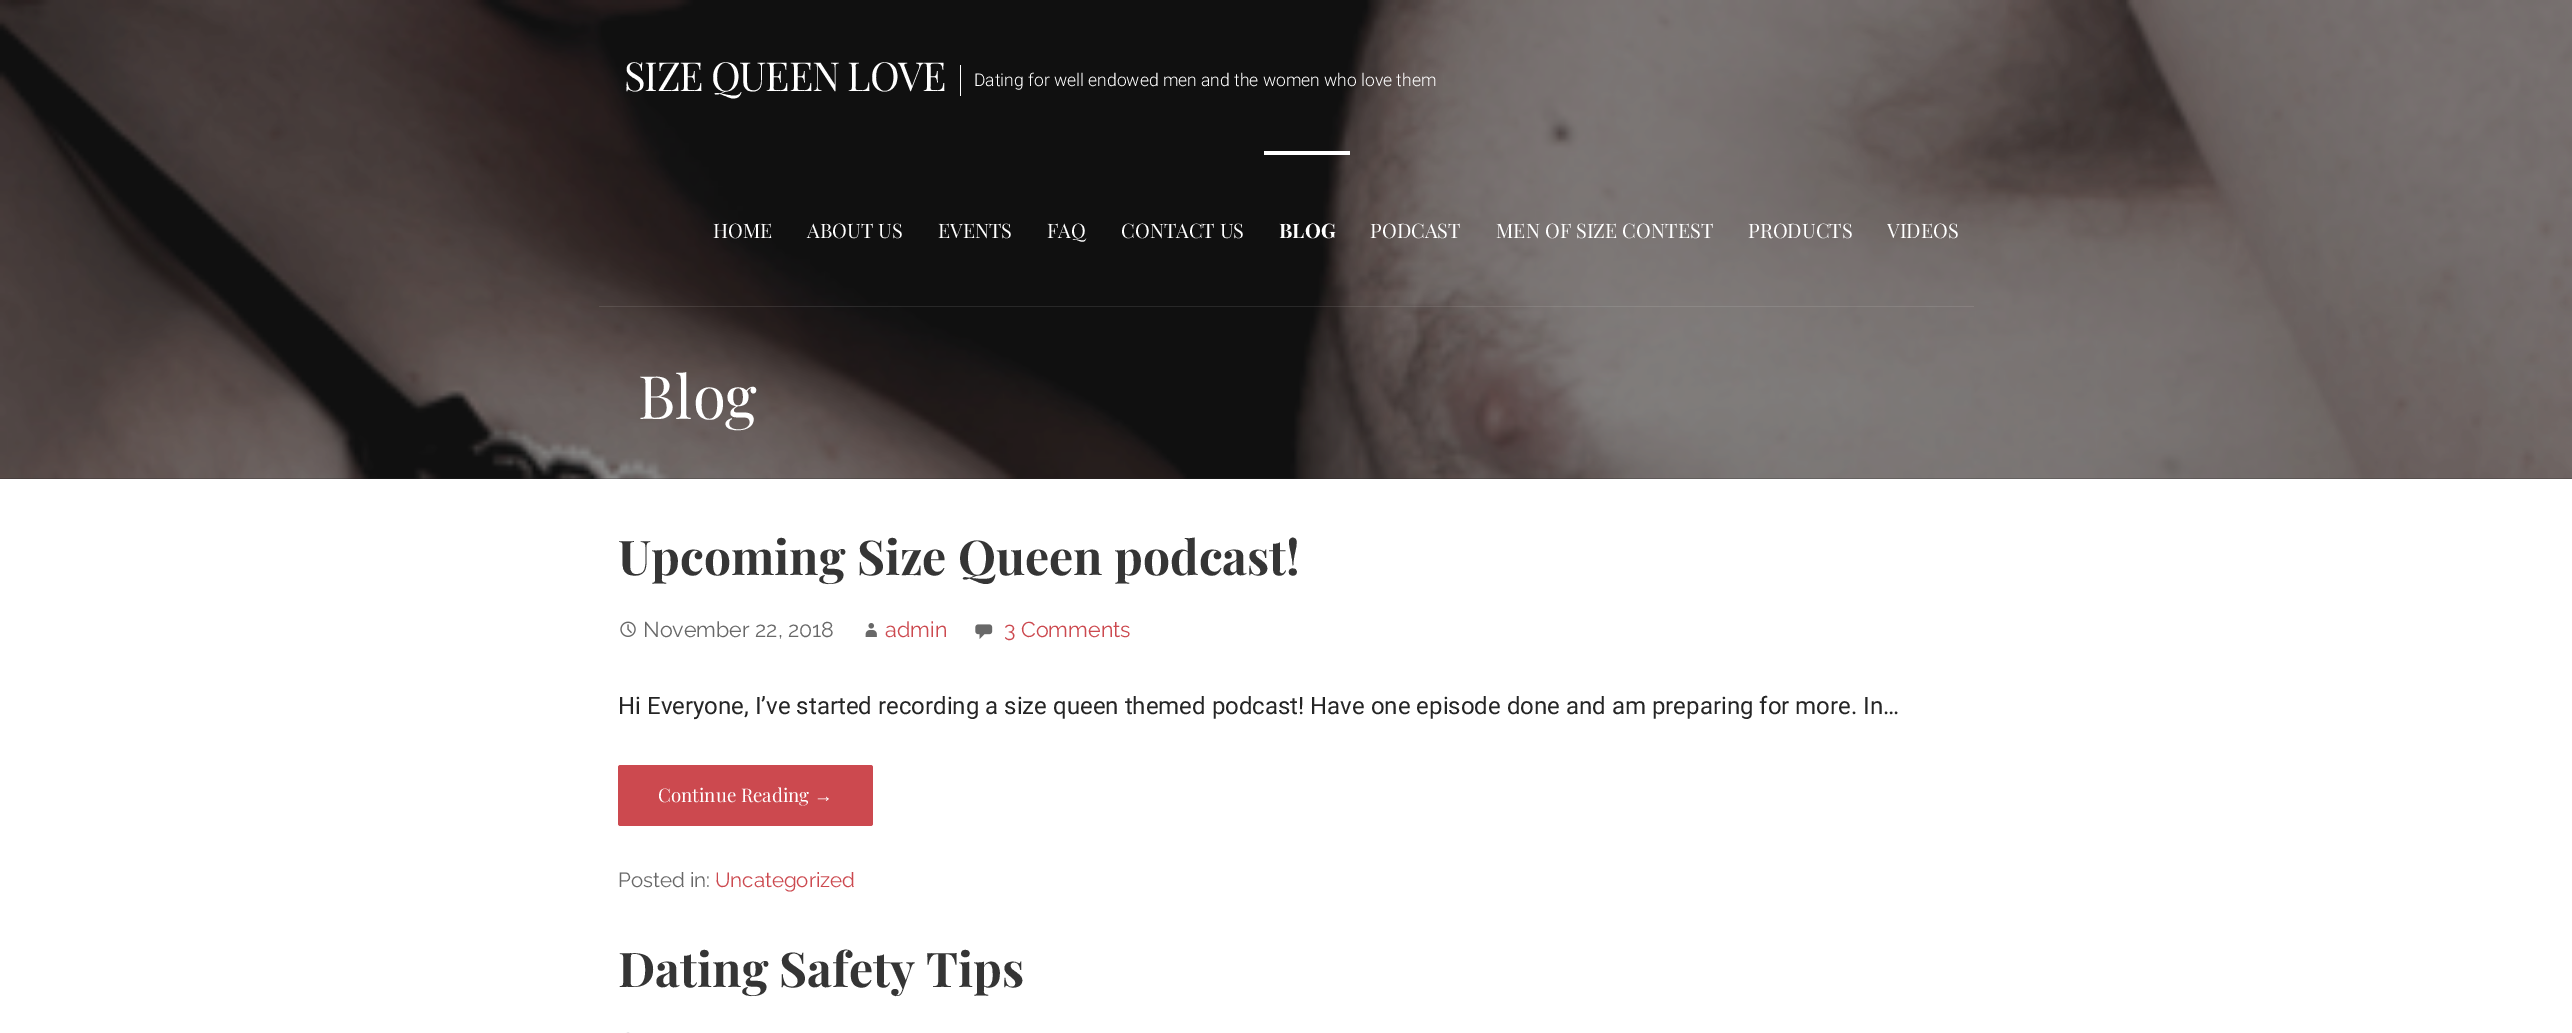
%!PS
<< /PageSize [2572 1033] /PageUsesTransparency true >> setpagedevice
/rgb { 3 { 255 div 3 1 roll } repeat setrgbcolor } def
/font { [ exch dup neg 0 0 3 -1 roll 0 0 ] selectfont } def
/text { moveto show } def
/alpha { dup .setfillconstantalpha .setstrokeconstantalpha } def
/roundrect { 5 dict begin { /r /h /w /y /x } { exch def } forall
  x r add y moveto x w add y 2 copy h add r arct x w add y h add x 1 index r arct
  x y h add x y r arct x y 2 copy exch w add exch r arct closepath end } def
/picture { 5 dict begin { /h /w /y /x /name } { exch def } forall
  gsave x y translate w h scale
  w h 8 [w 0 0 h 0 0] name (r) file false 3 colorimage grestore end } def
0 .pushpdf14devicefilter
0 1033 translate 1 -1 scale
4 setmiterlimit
255 255 255 rgb
0 0 2572 1033 rectfill
(img_01.rgb) 0 0 2572 479 picture
0.1 alpha
599 306 1375 1 rectfill
1 alpha
960 65 1 31 rectfill
1264 151 86 4 rectfill
(img_02.rgb) 620 621 16 16 picture
(img_03.rgb) 865 623 12 14 picture
(img_04.rgb) 975 624 18 15 picture
204 73 79 rgb
618 765 255 61 2.5 roundrect fill
(img_05.rgb) 626 1032 4 1 picture
/PlayfairDisplay-Regular 40 font
255 255 255 rgb
624 91 moveto -1.25 0 (SIZE QUEEN LOVE) ashow
/Roboto-Light 17.5 font
(Dating for well endowed men and the women who love them) 974 86 text
/PlayfairDisplay-Regular 20 font
(HOME) 713 238 text
(ABOUT US) 807 238 text
(EVENTS) 938 238 text
(FAQ) 1047 238 text
(CONTACT US) 1121 238 text
/PlayfairDisplay-Bold 20 font
(BLOG) 1279 238 text
/PlayfairDisplay-Regular 20 font
(PODCAST) 1370 238 text
(MEN OF SIZE CONTEST) 1496 238 text
(PRODUCTS) 1748 238 text
(VIDEOS) 1887 238 text
/PlayfairDisplay-Regular 60 font
(Blog) 638 419 text
/PlayfairDisplay-Bold 48 font
53 53 53 rgb
(Upcoming Size Queen podcast!) 618 575 text
/Raleway-Regular 21.5 font
104 104 104 rgb
(November 22, 2018) 643 637 text
204 73 79 rgb
(admin) 885 637 text
(3 Comments) 1004 637 text
/Roboto-Regular 24 font
37 37 37 rgb
(Hi Everyone, I’ve started recording a size queen themed podcast! Have one episode done and am preparing for more. In…) 618 714 text
/PlayfairDisplay-Regular 18.75 font
255 255 255 rgb
(Continue Reading) 658 802 text
/LiberationSans-Regular 18.75 font
(→) 814 802 text
/Raleway-Regular 20.5 font
104 104 104 rgb
(Posted in:) 618 887 text
204 73 79 rgb
(Uncategorized) 715 887 text
/PlayfairDisplay-Bold 48 font
53 53 53 rgb
(Dating Safety Tips) 618 987 text
.poppdf14devicefilter showpage
